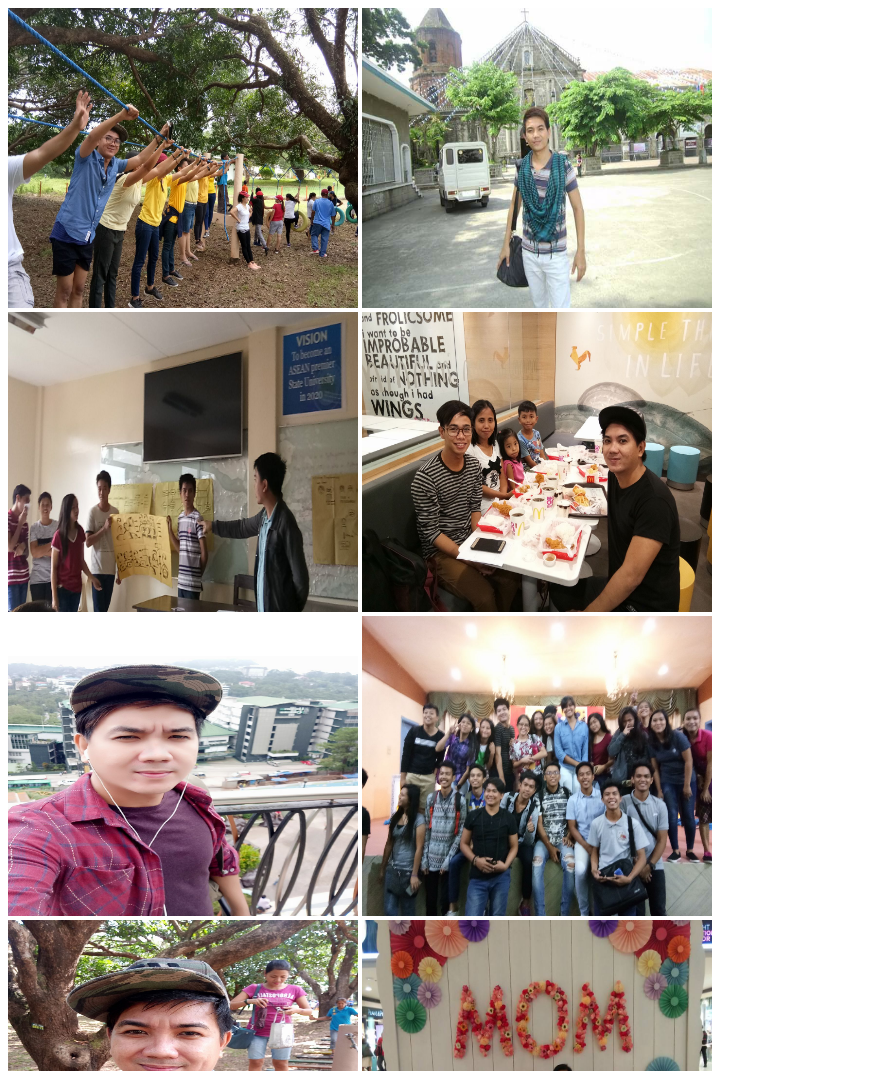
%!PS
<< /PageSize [875 1071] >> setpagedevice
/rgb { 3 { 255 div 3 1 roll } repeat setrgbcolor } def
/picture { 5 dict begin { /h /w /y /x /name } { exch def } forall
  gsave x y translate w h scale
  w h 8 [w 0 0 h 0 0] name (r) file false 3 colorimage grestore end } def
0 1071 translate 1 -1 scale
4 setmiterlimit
255 255 255 rgb
0 0 875 1071 rectfill
(img_01.rgb) 8 8 350 300 picture
(img_02.rgb) 362 8 350 300 picture
(img_03.rgb) 8 312 350 300 picture
(img_04.rgb) 362 312 350 300 picture
(img_05.rgb) 8 656 350 260 picture
(img_06.rgb) 362 616 350 300 picture
(img_07.rgb) 8 920 350 151 picture
(img_08.rgb) 362 920 350 151 picture
showpage
